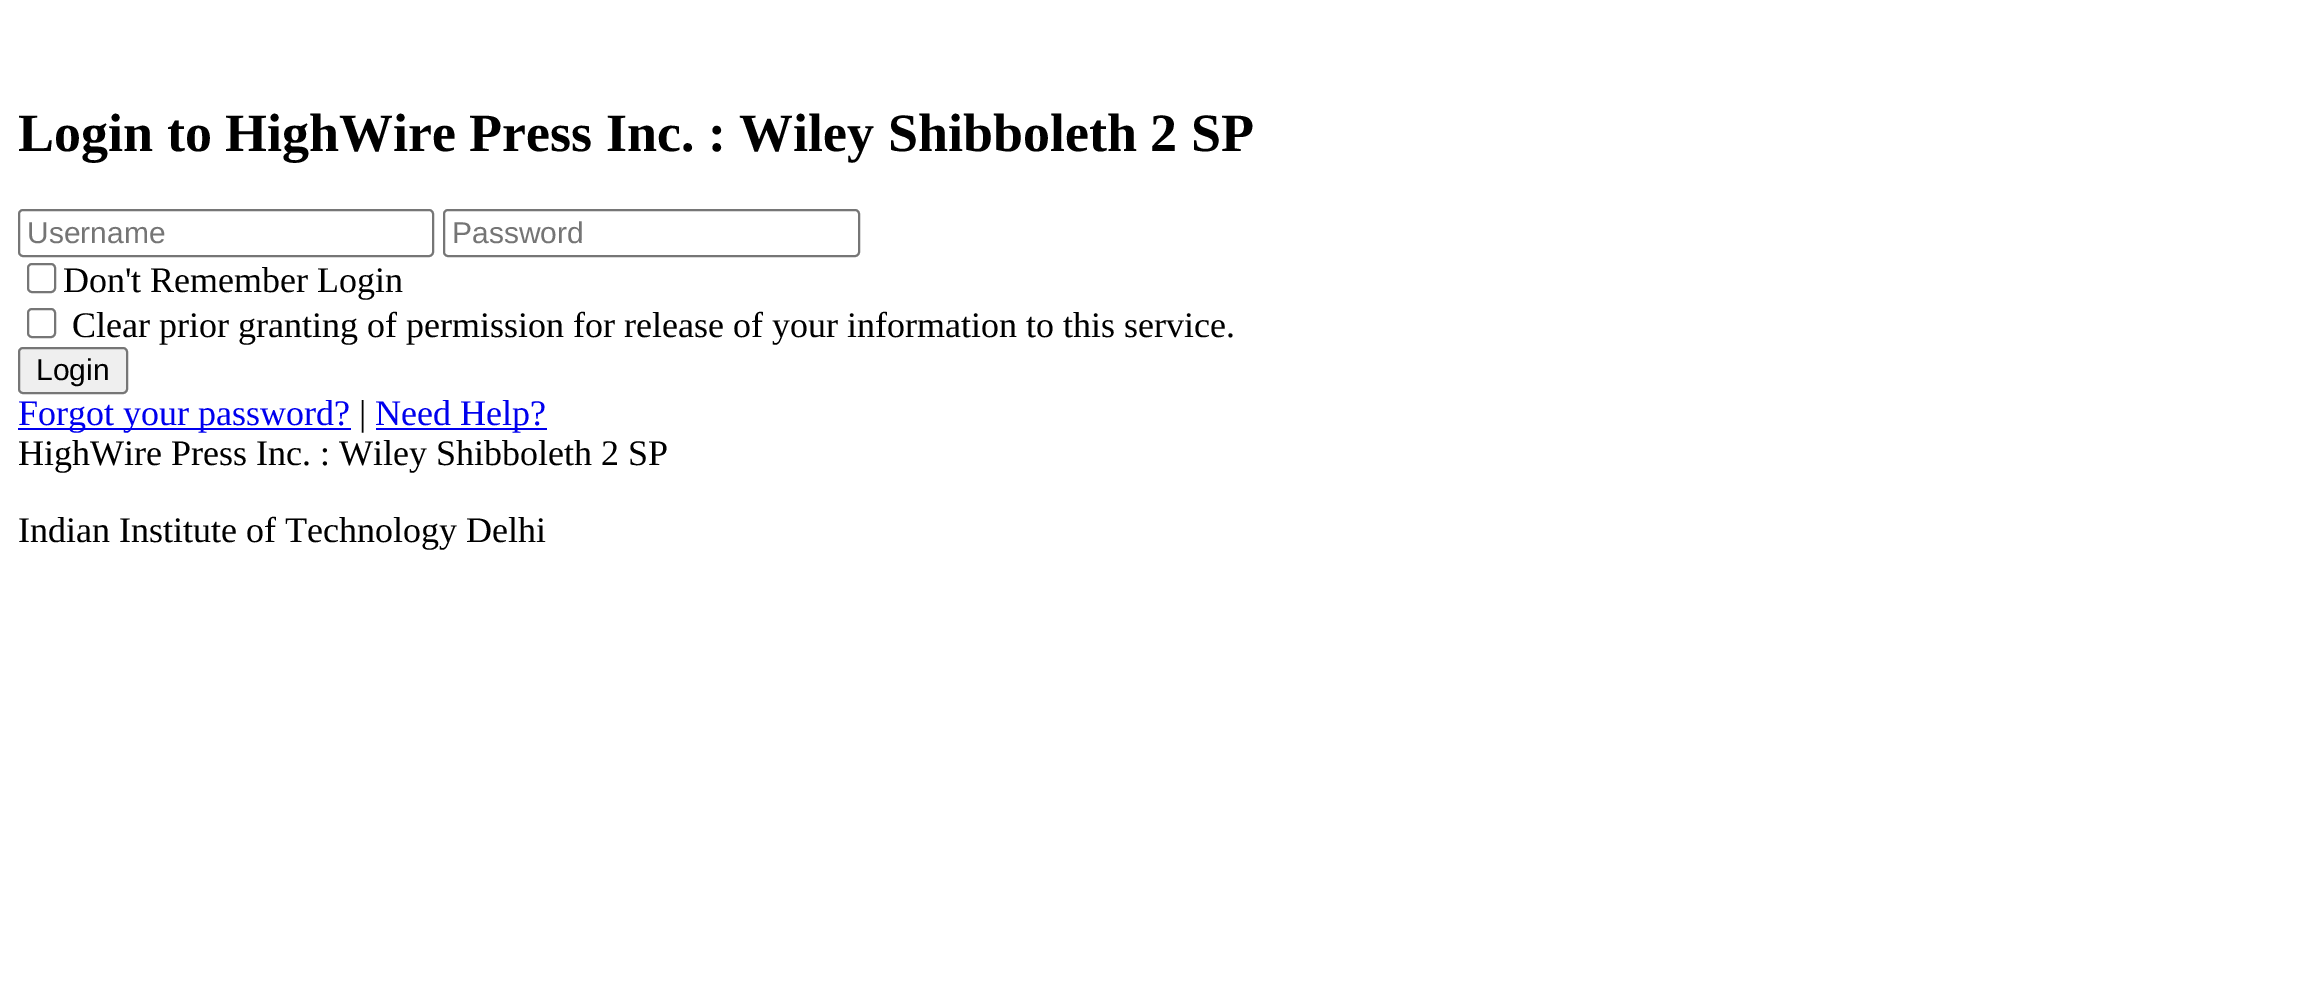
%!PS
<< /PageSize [2297 1006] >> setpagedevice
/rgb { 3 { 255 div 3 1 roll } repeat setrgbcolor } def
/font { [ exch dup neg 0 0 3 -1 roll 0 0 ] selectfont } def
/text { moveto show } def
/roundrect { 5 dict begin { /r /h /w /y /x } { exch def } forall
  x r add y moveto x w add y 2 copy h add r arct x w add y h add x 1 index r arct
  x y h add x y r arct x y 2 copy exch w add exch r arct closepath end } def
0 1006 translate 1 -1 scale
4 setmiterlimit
255 255 255 rgb
0 0 2297 1006 rectfill
118 118 118 rgb
2 setlinewidth
19 210 414 46 4 roundrect stroke
444 210 415 46 4 roundrect stroke
28 264 27 28 4 roundrect stroke
28 309 27 28 4 roundrect stroke
239 239 239 rgb
19 348 108 45 4 roundrect gsave fill grestore
118 118 118 rgb
stroke
0 0 238 rgb
18 428 333 2 rectfill
376 428 171 2 rectfill
/LiberationSerif-Bold 54 font
0 0 0 rgb
(Login to HighWire Press Inc. : Wiley Shibboleth 2 SP) 18 151 text
/LiberationSans-Regular 30 font
117 117 117 rgb
(Username) 27 243 text
(Password) 452 243 text
/LiberationSerif-Regular 36 font
0 0 0 rgb
(Don't Remember Login) 63 292 text
(Clear prior granting of permission for release of your information to this service.) 72 337 text
/LiberationSans-Regular 30 font
(Login) 36 380 text
/LiberationSerif-Regular 36 font
0 0 238 rgb
(Forgot your password?) 18 425 text
0 0 0 rgb
(|) 359 425 text
0 0 238 rgb
(Need Help?) 375 425 text
0 0 0 rgb
(HighWire Press Inc. : Wiley Shibboleth 2 SP) 18 465 text
(Indian Institute of Technology Delhi) 18 542 text
showpage
